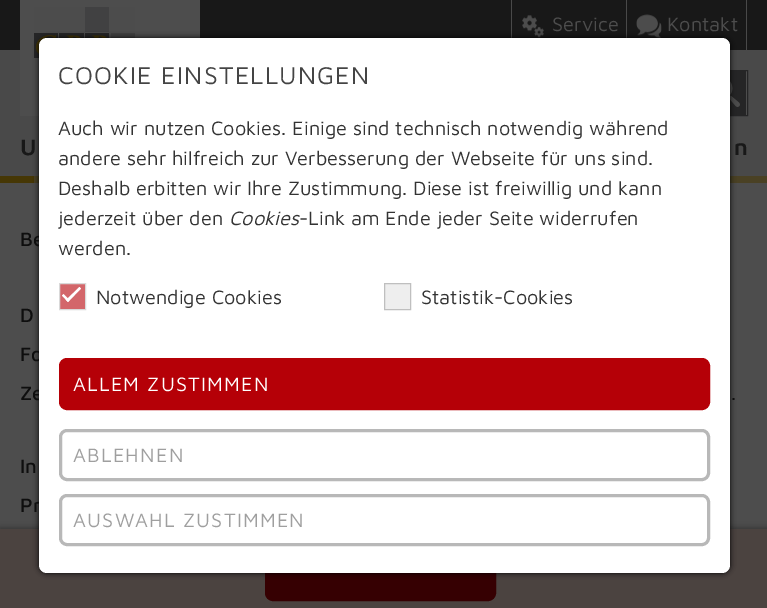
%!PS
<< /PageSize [767 608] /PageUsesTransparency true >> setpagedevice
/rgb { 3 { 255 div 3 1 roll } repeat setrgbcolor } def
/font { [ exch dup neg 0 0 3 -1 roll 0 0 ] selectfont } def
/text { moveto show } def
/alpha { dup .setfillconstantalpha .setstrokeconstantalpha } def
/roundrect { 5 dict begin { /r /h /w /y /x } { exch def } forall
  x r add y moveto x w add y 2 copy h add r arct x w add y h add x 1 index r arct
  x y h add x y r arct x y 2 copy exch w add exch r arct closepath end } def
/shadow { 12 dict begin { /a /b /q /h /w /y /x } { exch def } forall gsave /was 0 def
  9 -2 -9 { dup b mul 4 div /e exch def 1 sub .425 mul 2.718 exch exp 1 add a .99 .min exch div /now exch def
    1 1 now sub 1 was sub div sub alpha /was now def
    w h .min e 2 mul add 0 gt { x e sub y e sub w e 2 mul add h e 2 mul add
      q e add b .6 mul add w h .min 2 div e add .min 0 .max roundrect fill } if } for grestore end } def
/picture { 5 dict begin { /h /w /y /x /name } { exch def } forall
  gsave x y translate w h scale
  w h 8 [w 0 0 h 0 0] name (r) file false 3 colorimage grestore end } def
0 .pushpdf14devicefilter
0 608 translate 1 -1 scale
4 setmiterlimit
77 77 77 rgb
0 0 767 608 rectfill
73 73 73 rgb
0 50 767 126 rectfill
24 24 24 rgb
0 0 767 50 rectfill
77 77 77 rgb
20 0 180 116 rectfill
(img_01.rgb) 34 7 101 51 picture
73 73 73 rgb
746 0 1 50 rectfill
511 0 1 38 rectfill
(img_02.rgb) 522 15 22 23 picture
626 0 1 38 rectfill
(img_03.rgb) 636 14 26 24 picture
77 77 77 rgb
746 71 1 44 rectfill
37 37 38 rgb
218.5 70.5 529 45 rectstroke
730 71 16 44 rectfill
(img_04.rgb) 730 81 10 26 picture
74 65 36 rgb
34 176 733 7 rectfill
70 55 5 rgb
0 176 34 7 rectfill
34 34 34 rgb
0 528 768 80 0 3 0.63 shadow
75 67 64 rgb
0 529 767 79 rectfill
54 0 2 rgb
265.5 536.5 230 64 7.5 roundrect gsave fill grestore
stroke
0 0 0 rgb
39 38 691 535 8 3 1 shadow
/MavenPro-Regular 20 font
77 77 77 rgb
(Service) 552 31 text
(Kontakt) 667 31 text
/MavenPro-SemiBold 23 font
24 24 24 rgb
(U) 20 155 text
(n) 734 155 text
/MavenPro-Medium 20 font
14 14 14 rgb
(Be) 20 246 text
(D) 20 322 text
(Fo) 20 361 text
(Ze) 20 400 text
/MavenPro-Regular 20 font
(.) 731 400 text
/MavenPro-Medium 20 font
(In) 20 473 text
(Pr) 20 512 text
255 255 255 rgb
39 38 691 535 8 roundrect fill
/MavenPro-Regular 25 font
68 68 68 rgb
58 84 moveto 1.25 0 (COOKIE EINSTELLUNGEN) ashow
/MavenPro-Regular 20 font
51 51 51 rgb
(Auch wir nutzen Cookies. Einige sind technisch notwendig während) 58 135 text
(andere sehr hilfreich zur Verbesserung der Webseite für uns sind.) 58 165 text
(Deshalb erbitten wir Ihre Zustimmung. Diese ist freiwillig und kann) 58 195 text
(jederzeit über den) 58 225 text
/MavenPro-Italic 20 font
(Cookies) 229 225 text
/MavenPro-Regular 20 font
(-Link am Ende jeder Seite widerrufen) 299 225 text
(werden.) 58 255 text
211 102 106 rgb
59.5 283.5 moveto 26 0 rlineto 0 26 rlineto -26 0 rlineto closepath gsave fill grestore
217 217 217 rgb
stroke
255 255 255 rgb
79.5 287 moveto 1.5 1.5 rlineto -13 13.5 rlineto -2 -2 rlineto closepath fill
63.5 294 moveto 6 6 rlineto -1.5 2 rlineto -6 -6.5 rlineto closepath fill
51 51 51 rgb
(Notwendige Cookies) 96 304 text
238 238 238 rgb
384.5 283.5 moveto 26 0 rlineto 0 26 rlineto -26 0 rlineto closepath gsave fill grestore
191 191 191 rgb
stroke
51 51 51 rgb
(Statistik-Cookies) 421 304 text
181 0 7 rgb
60.5 359.5 648 49 6.5 roundrect gsave fill grestore
3 setlinewidth
stroke
255 255 255 rgb
73 391 moveto 1.25 0 (ALLEM ZUSTIMMEN) ashow
184 184 184 rgb
60.5 430.5 648 49 6.5 roundrect stroke
159 159 159 rgb
73 462 moveto 1.25 0 (ABLEHNEN) ashow
184 184 184 rgb
60.5 495.5 648 49 6.5 roundrect stroke
159 159 159 rgb
73 527 moveto 1.25 0 (AUSWAHL ZUSTIMMEN) ashow
.poppdf14devicefilter showpage
